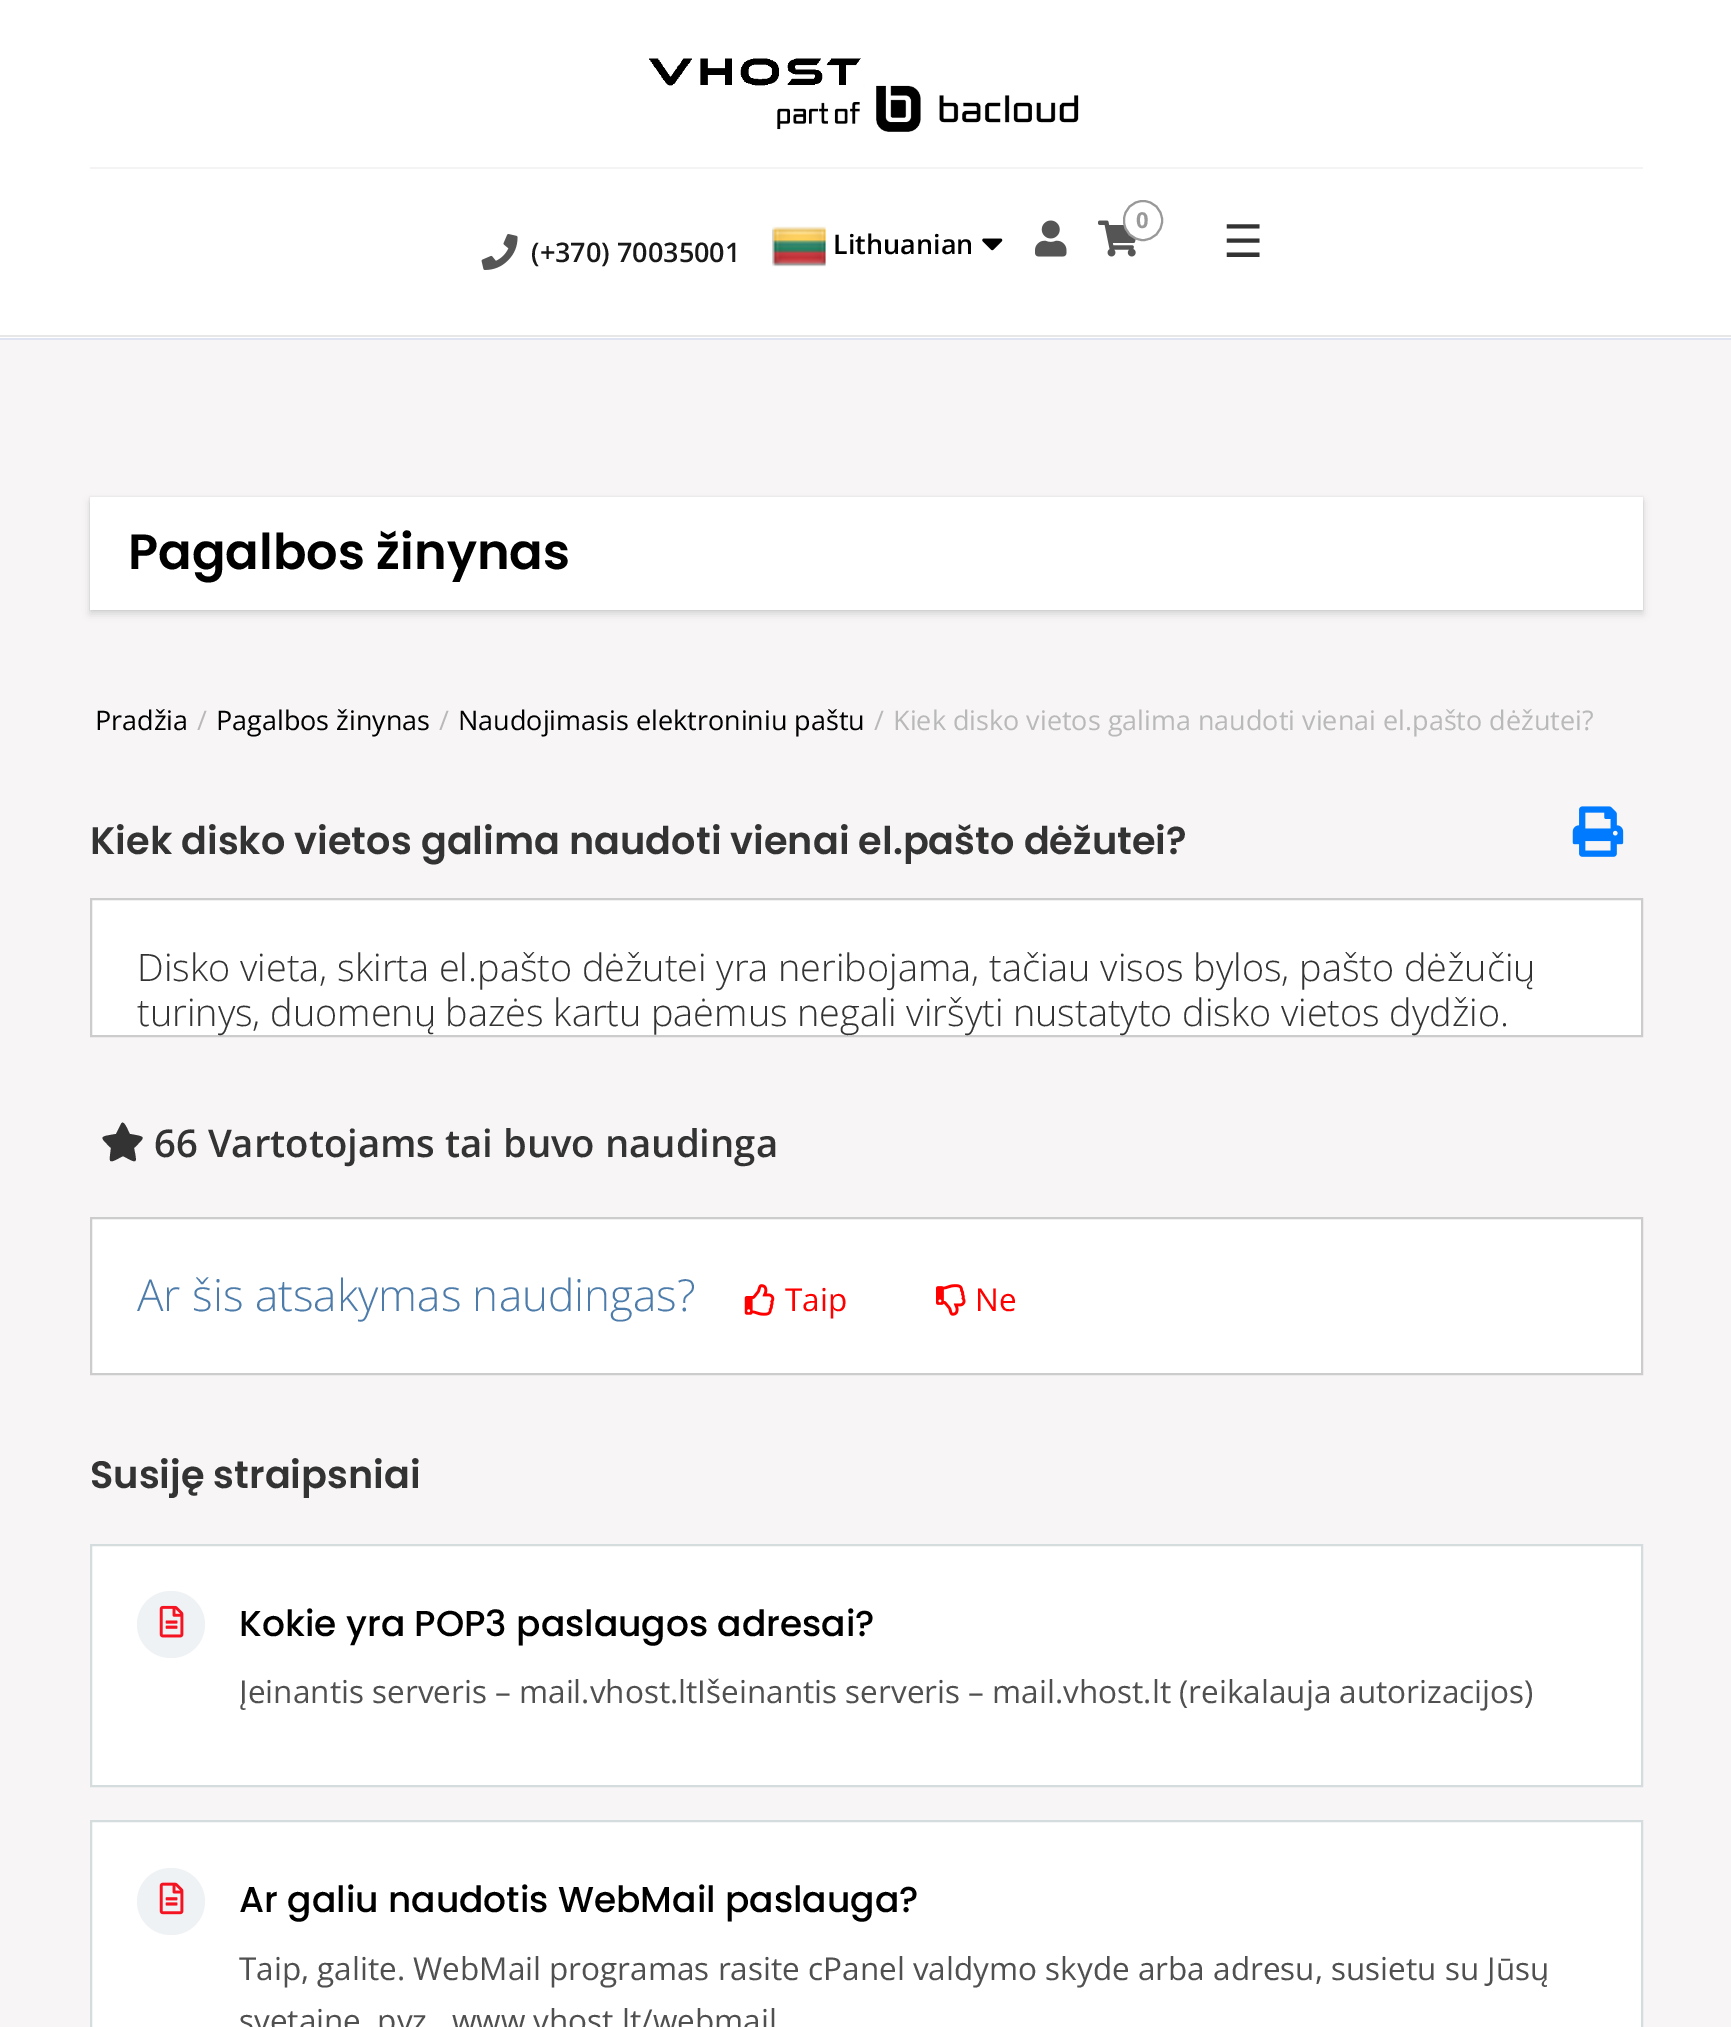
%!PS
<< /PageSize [1731 2027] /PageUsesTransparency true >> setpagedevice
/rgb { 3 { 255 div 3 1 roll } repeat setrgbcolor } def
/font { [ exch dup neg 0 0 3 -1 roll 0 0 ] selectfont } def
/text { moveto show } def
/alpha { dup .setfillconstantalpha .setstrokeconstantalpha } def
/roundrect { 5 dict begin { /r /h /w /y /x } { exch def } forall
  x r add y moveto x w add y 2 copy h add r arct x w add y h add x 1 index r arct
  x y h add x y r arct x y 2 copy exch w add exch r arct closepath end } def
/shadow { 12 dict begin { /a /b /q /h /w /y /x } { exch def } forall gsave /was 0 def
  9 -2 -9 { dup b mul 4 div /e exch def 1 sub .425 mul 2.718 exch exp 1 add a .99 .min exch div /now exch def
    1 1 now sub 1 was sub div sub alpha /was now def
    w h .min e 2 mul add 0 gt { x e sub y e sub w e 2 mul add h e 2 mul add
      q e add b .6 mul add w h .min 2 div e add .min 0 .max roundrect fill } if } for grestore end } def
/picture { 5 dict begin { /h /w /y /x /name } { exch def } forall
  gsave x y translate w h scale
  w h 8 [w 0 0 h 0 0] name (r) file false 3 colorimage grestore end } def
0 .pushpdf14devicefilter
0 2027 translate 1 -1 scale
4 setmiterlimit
255 255 255 rgb
0 0 1731 2027 rectfill
(img_01.rgb) 649 58 430 74 picture
245 243 243 rgb
90 167 1553 2 rectfill
(img_02.rgb) 481 234 37 36 picture
(img_03.rgb) 772 226 54 41 picture
(img_04.rgb) 982 238 21 13 picture
(img_05.rgb) 1035 220 32 37 picture
(img_06.rgb) 1098 220 38 37 picture
255 255 255 rgb
1124 201 38 39 19 roundrect gsave fill grestore
153 153 153 rgb
2 setlinewidth
stroke
231 231 231 rgb
0 335 1731 2 rectfill
223 228 242 rgb
0 338 1731 2 rectfill
247 245 246 rgb
0 340 1731 1687 rectfill
0 0 0 rgb
90 502 1553 112 0 4 0.13 shadow
90 497 1553 113 0 1 0.11 shadow
255 255 255 rgb
90 497 1553 113 rectfill
(img_07.rgb) 1572 806 52 51 picture
91 899 moveto 1551 0 rlineto 0 137 rlineto -1551 0 rlineto closepath gsave fill grestore
204 204 204 rgb
stroke
51 51 51 rgb
121 1124 moveto 3 -6 8 10 9 10 rcurveto 16 3 16 2 4 14 rcurveto 3 16 4 16 -11 8 rcurveto -15 8 -14 8 -12 -8 rcurveto -12 -12 -12 -11 5 -14 rcurveto closepath fill
255 255 255 rgb
91 1218 moveto 1551 0 rlineto 0 156 rlineto -1551 0 rlineto closepath gsave fill grestore
204 204 204 rgb
stroke
(img_08.rgb) 744 1284 31 32 picture
(img_09.rgb) 936 1284 30 32 picture
255 255 255 rgb
91 1545 moveto 1551 0 rlineto 0 241 rlineto -1551 0 rlineto closepath gsave fill grestore
212 220 222 rgb
stroke
238 242 244 rgb
137 1591 68 67 33.5 roundrect fill
(img_10.rgb) 159 1605 25 33 picture
255 255 255 rgb
91 1821 moveto 1551 0 rlineto 0 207 rlineto -1551 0 rlineto closepath gsave fill grestore
212 220 222 rgb
stroke
238 242 244 rgb
137 1868 68 67 33.5 roundrect fill
(img_11.rgb) 159 1882 25 33 picture
/OpenSans-SemiBold 27 font
25 25 25 rgb
(\(+370\) 70035001) 531 262 text
0 0 0 rgb
(Lithuanian) 833 254 text
/OpenSans-Bold 22 font
153 153 153 rgb
(0) 1136 228 text
/DejaVuSans-Regular 45 font
51 51 51 rgb
(☰) 1223 257 text
/Poppins-SemiBold 49.5 font
0 0 0 rgb
(Pagalbos žinynas) 128 569 text
/OpenSans-Regular 27 font
(Pradžia) 95 730 text
185 185 185 rgb
(/) 197 730 text
0 0 0 rgb
(Pagalbos žinynas) 216 730 text
185 185 185 rgb
(/) 439 730 text
0 0 0 rgb
(Naudojimasis elektroniniu paštu) 458 730 text
185 185 185 rgb
(/) 874 730 text
(Kiek disko vietos galima naudoti vienai el.pašto dėžutei?) 893 730 text
/Poppins-SemiBold 38.25 font
51 51 51 rgb
(Kiek disko vietos galima naudoti vienai el.pašto dėžutei?) 90 854 text
/OpenSans-Light 37.8 font
137 981 moveto -0.1 0 32 (Disko vieta, skirta el.pašto dėžutei yra neribojama, tačiau visos bylos, pašto dėžučių) widthshow
137 1026 moveto -0.25 0 32 (turinys, duomenų bazės kartu paėmus negali viršyti nustatyto disko vietos dydžio.) widthshow
/OpenSans-SemiBold 38.25 font
(66 Vartotojams tai buvo naudinga) 154 1157 text
/OpenSans-Light 44.1 font
77 124 171 rgb
(Ar šis atsakymas naudingas?) 137 1311 text
/OpenSans-Regular 31.5 font
255 0 0 rgb
(Taip) 785 1311 text
(Ne) 975 1311 text
/Poppins-SemiBold 38.25 font
51 51 51 rgb
(Susiję straipsniai) 90 1488 text
/Poppins-Medium 36 font
0 0 0 rgb
(Kokie yra POP3 paslaugos adresai?) 239 1636 text
/OpenSans-Regular 31.5 font
80 80 80 rgb
(Įeinantis serveris – mail.vhost.ltIšeinantis serveris – mail.vhost.lt \(reikalauja autorizacijos\)) 239 1703 text
/Poppins-Medium 36 font
0 0 0 rgb
(Ar galiu naudotis WebMail paslauga?) 239 1912 text
/OpenSans-Regular 31.5 font
80 80 80 rgb
(Taip, galite. WebMail programas rasite cPanel valdymo skyde arba adresu, susietu su Jūsų) 239 1980 text
(svetaine, pvz.  www.vhost.lt/webmail) 239 2032 text
.poppdf14devicefilter showpage
